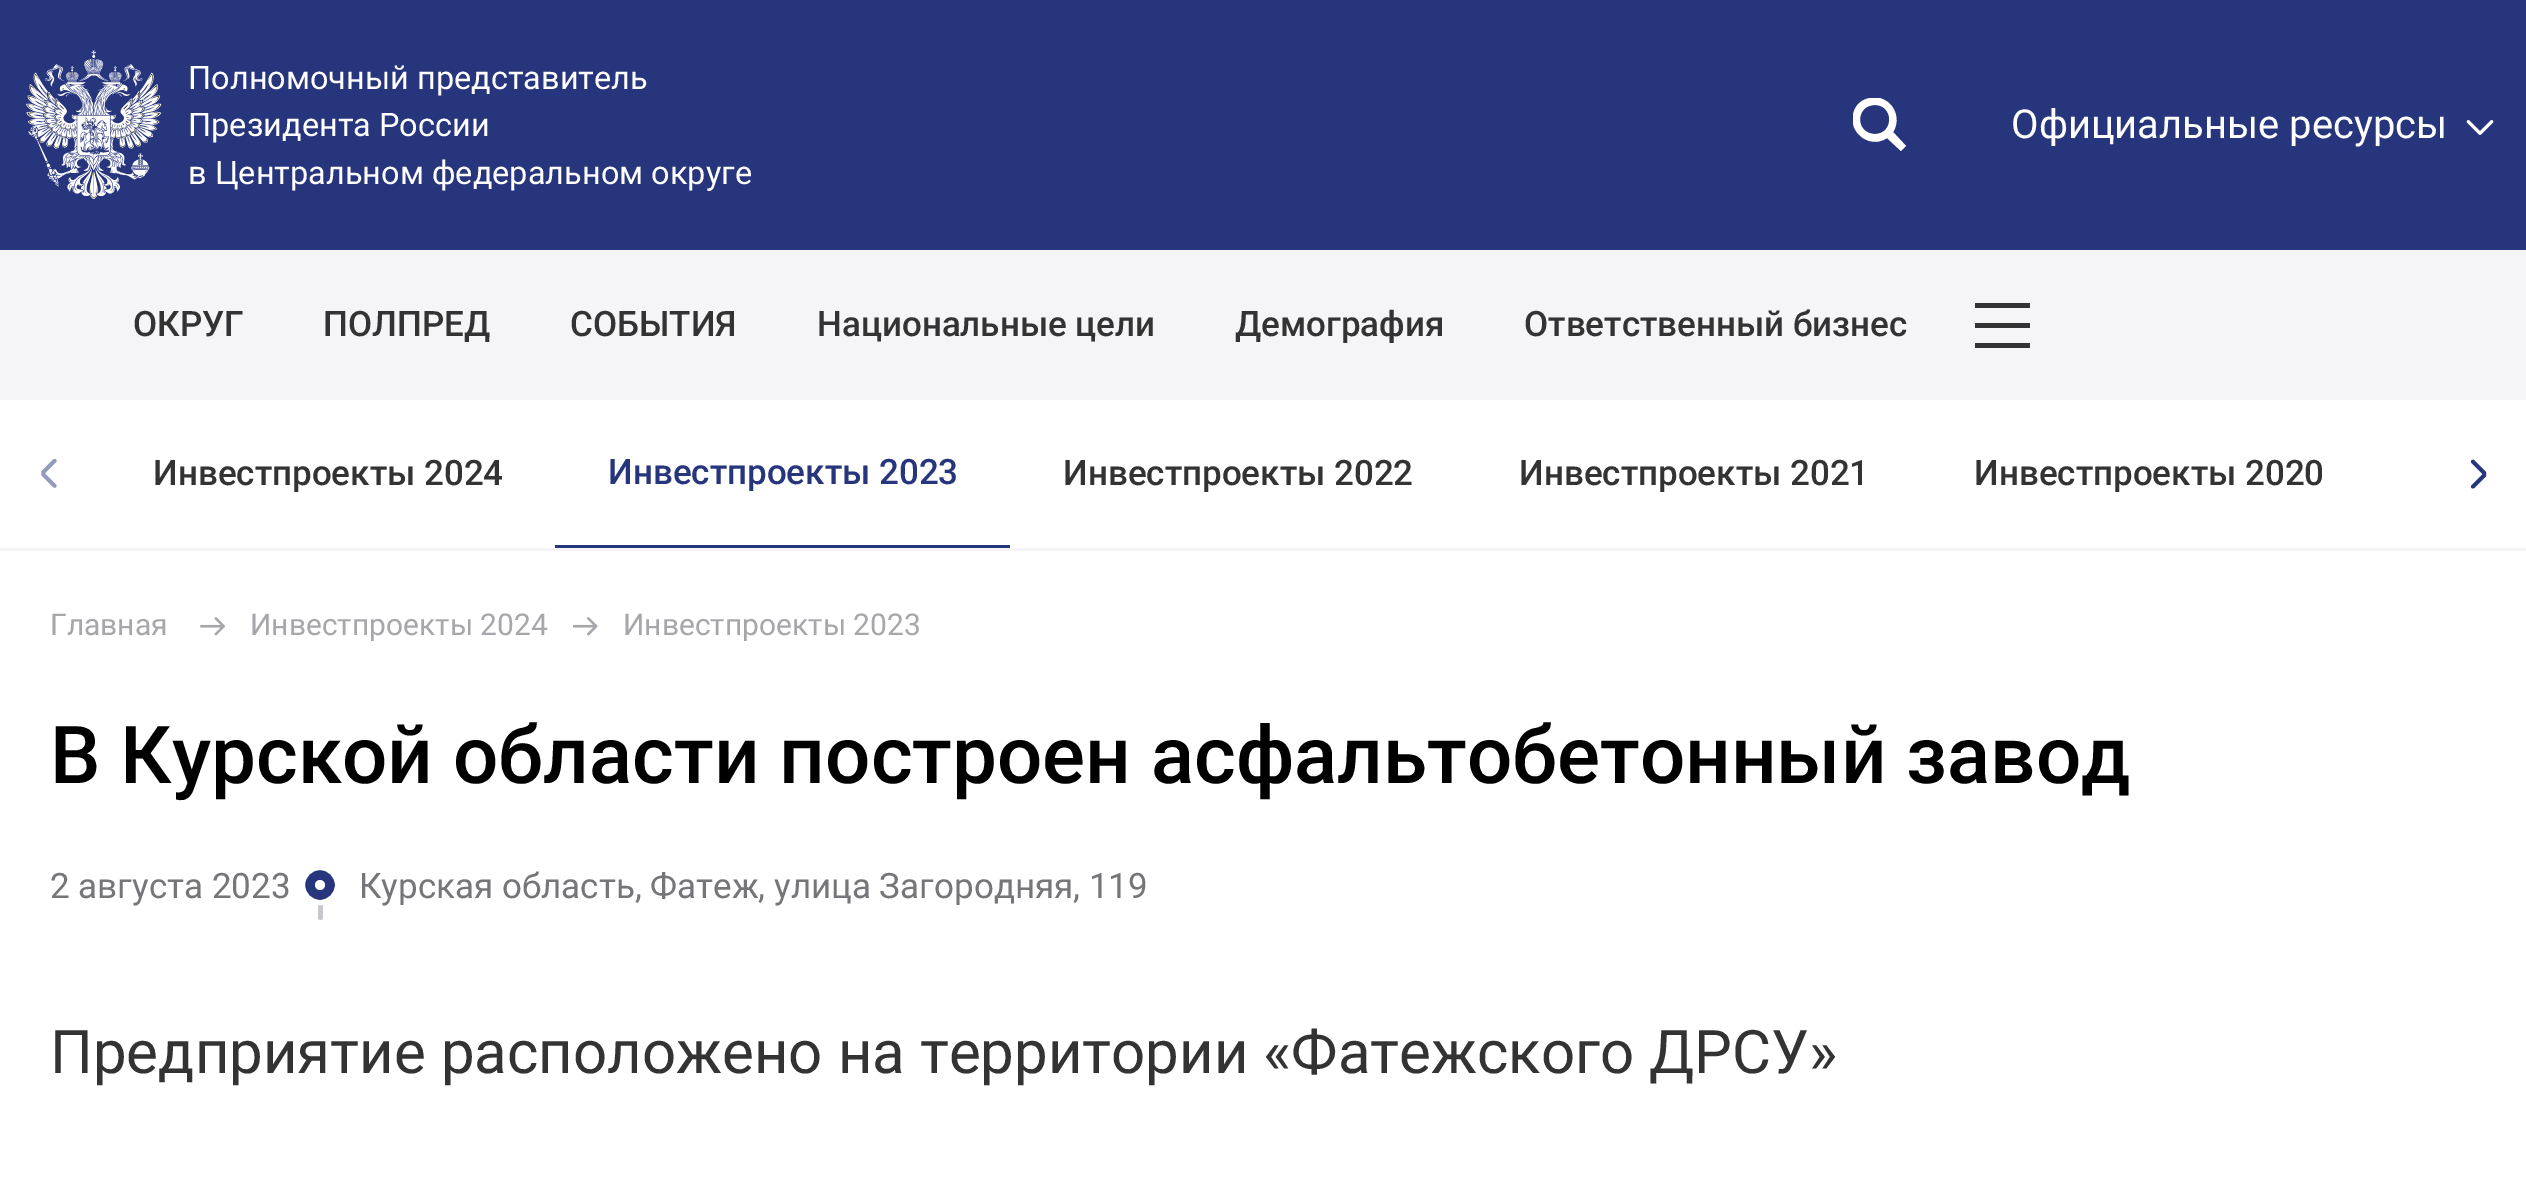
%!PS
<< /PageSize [2526 1177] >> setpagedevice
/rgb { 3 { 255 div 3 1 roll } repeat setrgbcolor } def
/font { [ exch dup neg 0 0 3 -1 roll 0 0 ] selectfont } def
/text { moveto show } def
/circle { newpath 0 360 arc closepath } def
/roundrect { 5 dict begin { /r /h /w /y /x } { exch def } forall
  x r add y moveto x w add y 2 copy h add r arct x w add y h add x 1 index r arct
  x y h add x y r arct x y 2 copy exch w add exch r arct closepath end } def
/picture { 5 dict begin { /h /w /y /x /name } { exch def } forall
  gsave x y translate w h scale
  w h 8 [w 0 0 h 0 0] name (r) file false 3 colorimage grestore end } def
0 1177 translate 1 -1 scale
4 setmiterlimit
255 255 255 rgb
0 0 2526 1177 rectfill
39 53 125 rgb
0 0 2526 250 rectfill
(img_01.rgb) 26 50 136 149 picture
gsave
1853 98 60 60 rectclip
255 255 255 rgb
1906 146 moveto -5 5 rlineto -14 -13 rlineto -19 13 -44 -10 -31 -31 rcurveto 3 -5 8 -8 14 -9 rcurveto 7 -2 15 1 20 6 rcurveto 7 7 9 19 3 28 rcurveto closepath 1875 105 moveto -20 0 -20 29 0 29 rcurveto 19 0 19 -29 0 -29 rcurveto closepath fill
grestore
(img_02.rgb) 2466 120 28 15 picture
245 245 247 rgb
0 250 2526 150 rectfill
51 51 51 rgb
1975 303 55 5 rectfill
1975 323 55 5 rectfill
1975 343 55 5 rectfill
245 245 247 rgb
0 548 2526 3 rectfill
(img_03.rgb) 41 458 16 30 picture
(img_04.rgb) 2470 459 17 30 picture
39 53 125 rgb
555 545 455 3 rectfill
(img_05.rgb) 200 617 25 19 picture
(img_06.rgb) 573 617 25 19 picture
200 199 204 rgb
318 880 5 40 2.5 roundrect fill
39 53 125 rgb
320 885 17.5 circle gsave fill grestore
255 255 255 rgb
5 setlinewidth
stroke
320 885 5 circle fill
/Roboto-Regular 32.5 font
(Полномочный представитель) 188 89 text
(Президента России) 188 136 text
(в Центральном федеральном округе) 188 184 text
/Roboto-Regular 40 font
(Официальные ресурсы) 2011 138 text
/Roboto-Medium 35 font
51 51 51 rgb
(ОКРУГ) 133 336 text
(ПОЛПРЕД) 323 336 text
(СОБЫТИЯ) 570 336 text
(Национальные цели) 817 336 text
(Демография) 1235 336 text
(Ответственный бизнес) 1524 336 text
(Инвестпроекты 2024) 153 485 text
39 53 125 rgb
(Инвестпроекты 2023) 608 484 text
51 51 51 rgb
(Инвестпроекты 2022) 1063 485 text
(Инвестпроекты 2021) 1519 485 text
(Инвестпроекты 2020) 1974 485 text
/Roboto-Regular 30 font
167 167 171 rgb
(Главная) 50 635 text
(Инвестпроекты 2024) 250 635 text
(Инвестпроекты 2023) 623 635 text
/Roboto-Medium 80 font
0 0 0 rgb
(В Курской области построен асфальтобетонный завод) 50 783 text
/Roboto-Regular 35 font
118 118 122 rgb
(2 августа 2023) 50 898 text
(Курская область, Фатеж, улица Загородняя, 119) 359 898 text
/Roboto-Regular 60 font
51 51 51 rgb
(Предприятие расположено на территории «Фатежского ДРСУ») 50 1073 text
showpage
